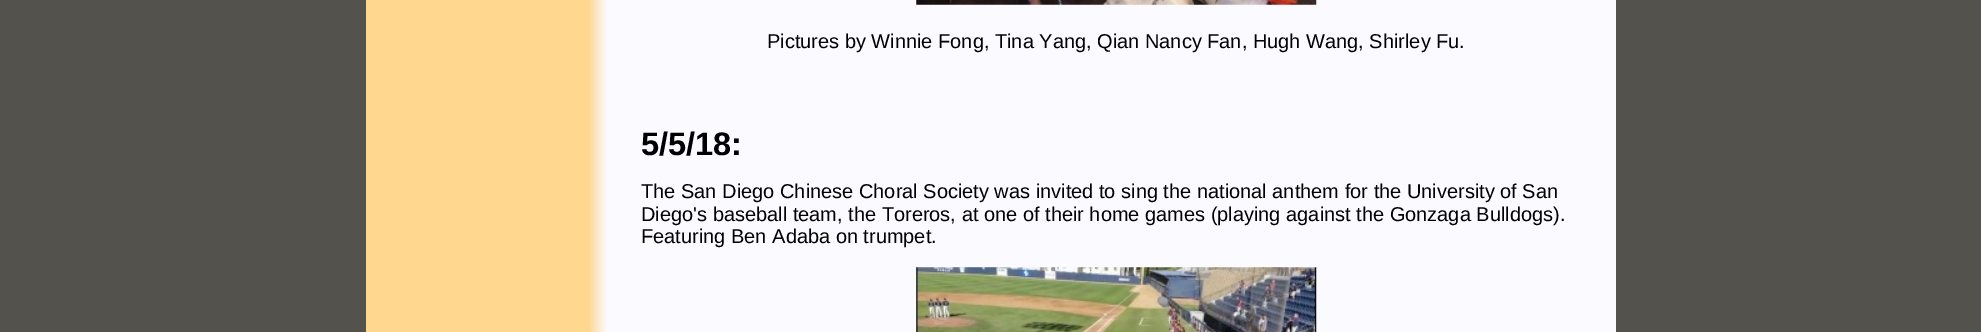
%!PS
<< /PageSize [1981 332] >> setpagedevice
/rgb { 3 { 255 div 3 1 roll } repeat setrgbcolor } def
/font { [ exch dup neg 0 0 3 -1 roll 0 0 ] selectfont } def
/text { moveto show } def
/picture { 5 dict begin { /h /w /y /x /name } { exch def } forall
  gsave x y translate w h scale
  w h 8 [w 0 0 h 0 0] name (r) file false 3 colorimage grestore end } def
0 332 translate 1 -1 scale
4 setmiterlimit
84 82 77 rgb
0 0 1981 332 rectfill
250 250 255 rgb
616 0 1000 332 rectfill
255 215 142 rgb
366 0 222 332 rectfill
(img_01.rgb) 588 0 28 332 picture
(img_02.rgb) 916 0 401 5 picture
(img_03.rgb) 916 267 401 65 picture
/LiberationSans-Regular 20 font
0 0 0 rgb
(Pictures by Winnie Fong, Tina Yang, Qian Nancy Fan, Hugh Wang, Shirley Fu.) 767 48 text
/LiberationSans-Bold 32.5 font
(5/5/18:) 641 155 text
/LiberationSans-Regular 20 font
(The San Diego Chinese Choral Society was invited to sing the national anthem for the University of San) 641 198 text
(Diego's baseball team, the Toreros, at one of their home games \(playing against the Gonzaga Bulldogs\).) 641 221 text
(Featuring Ben Adaba on trumpet.) 641 243 text
showpage
